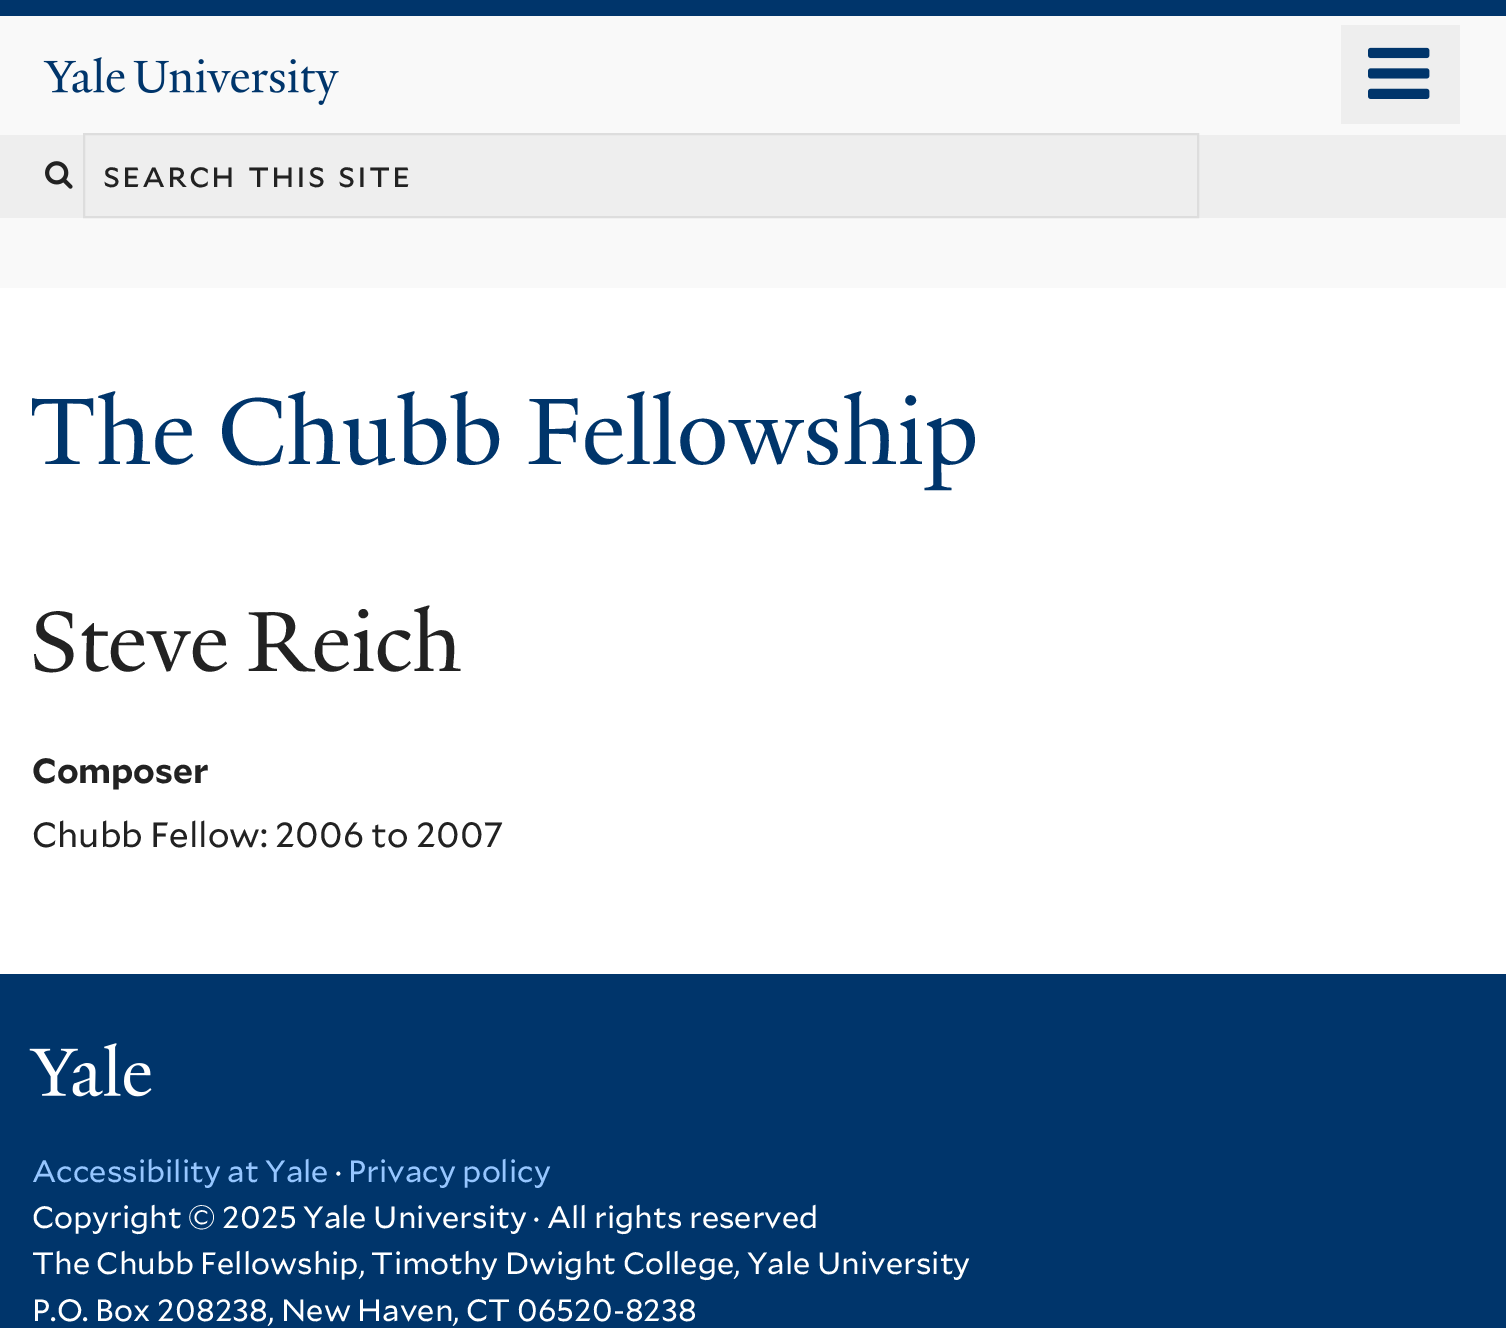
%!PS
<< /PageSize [1506 1328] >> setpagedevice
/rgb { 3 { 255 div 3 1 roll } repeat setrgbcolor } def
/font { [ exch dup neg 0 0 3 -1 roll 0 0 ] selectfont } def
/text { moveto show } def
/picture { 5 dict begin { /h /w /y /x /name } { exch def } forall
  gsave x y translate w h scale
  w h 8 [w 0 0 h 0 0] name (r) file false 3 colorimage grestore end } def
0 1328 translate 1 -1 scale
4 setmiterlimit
255 255 255 rgb
0 0 1506 1328 rectfill
0 53 107 rgb
0 0 1506 16 rectfill
249 249 249 rgb
0 16 1506 272 rectfill
(img_01.rgb) 43 57 82 36 picture
(img_02.rgb) 133 59 206 46 picture
238 238 238 rgb
1341 25 119 99 rectfill
(img_03.rgb) 1368 47 62 52 picture
0 135 1506 83 rectfill
(img_04.rgb) 45 161 28 28 picture
221 221 221 rgb
2 setlinewidth
84 134 1114 83 rectstroke
0 53 107 rgb
0 974 1506 354 rectfill
(img_05.rgb) 29 1043 123 54 picture
/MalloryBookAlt-Regular 35 font
34 34 34 rgb
103 187 moveto 2 0 32 1.75 0 (search this site) awidthshow
/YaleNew-Regular 102.75 font
0 53 107 rgb
(The Chubb Fellowship) 29 464 text
/YaleNew-Regular 92.5 font
34 34 34 rgb
29 671 moveto -2 0 32 (Steve Reich) widthshow
/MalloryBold-Bold 35 font
(Composer) 32 783 text
/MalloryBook-Regular 35 font
(Chubb Fellow: 2006 to 2007) 32 847 text
/MalloryBook-Regular 30.8 font
150 198 255 rgb
(Accessibility at Yale) 32 1182 text
255 255 255 rgb
(·) 335 1182 text
150 198 255 rgb
(Privacy policy) 348 1182 text
255 255 255 rgb
(Copyright © 2025 Yale University · All rights reserved) 32 1228 text
(The Chubb Fellowship, Timothy Dwight College, Yale University) 32 1274 text
(P.O. Box 208238, New Haven, CT 06520-8238) 32 1321 text
showpage
